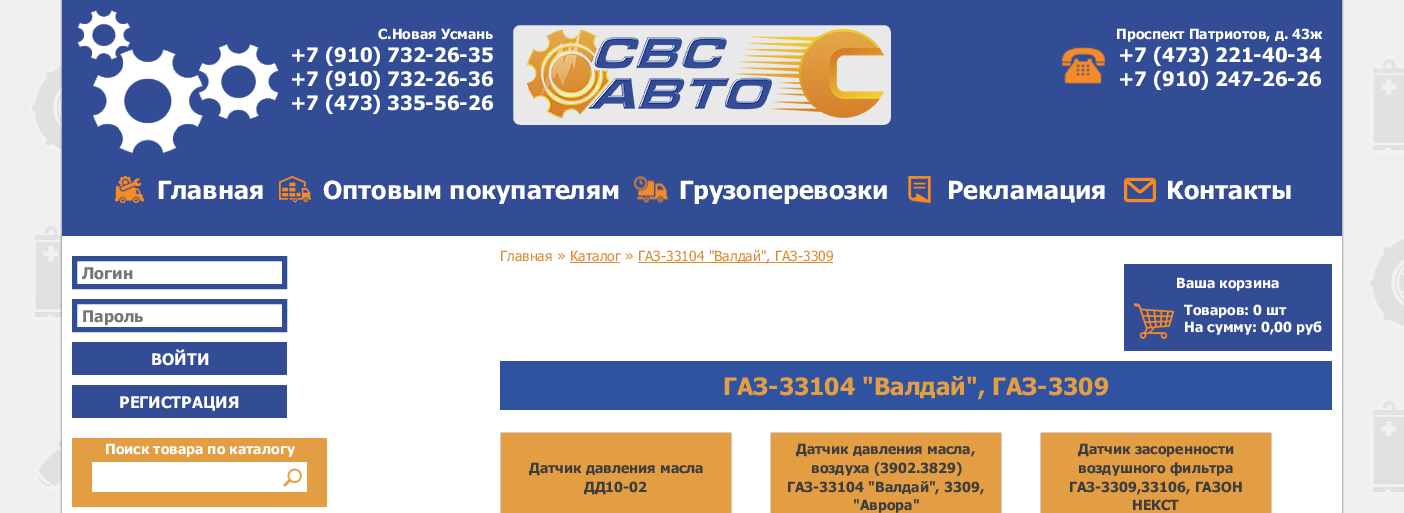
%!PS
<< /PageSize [1404 513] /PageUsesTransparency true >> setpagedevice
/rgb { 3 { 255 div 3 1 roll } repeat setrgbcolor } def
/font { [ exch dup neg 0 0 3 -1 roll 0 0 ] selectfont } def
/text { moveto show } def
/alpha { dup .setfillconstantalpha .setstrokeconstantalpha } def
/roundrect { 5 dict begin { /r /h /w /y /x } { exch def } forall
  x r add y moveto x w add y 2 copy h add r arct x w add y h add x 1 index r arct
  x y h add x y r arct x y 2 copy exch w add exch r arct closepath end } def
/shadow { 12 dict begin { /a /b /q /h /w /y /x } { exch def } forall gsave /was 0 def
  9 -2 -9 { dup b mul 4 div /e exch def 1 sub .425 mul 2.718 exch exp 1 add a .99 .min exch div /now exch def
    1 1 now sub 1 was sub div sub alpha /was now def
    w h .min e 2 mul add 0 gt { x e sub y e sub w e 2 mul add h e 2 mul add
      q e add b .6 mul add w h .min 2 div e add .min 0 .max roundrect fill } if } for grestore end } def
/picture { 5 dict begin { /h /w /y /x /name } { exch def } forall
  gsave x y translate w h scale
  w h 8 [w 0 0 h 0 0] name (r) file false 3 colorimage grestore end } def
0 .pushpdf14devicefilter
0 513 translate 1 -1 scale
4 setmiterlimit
255 255 255 rgb
0 0 1404 513 rectfill
(img_01.rgb) 0 0 1404 513 picture
61 61 61 rgb
62 0 1280 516 0 1 1 shadow
255 255 255 rgb
62 236 1280 277 rectfill
51 76 150 rgb
62 0 1280 236 rectfill
(img_02.rgb) 77 10 202 143 picture
233 233 233 rgb
506.5 18.5 391 113 13.5 roundrect gsave fill grestore
51 76 150 rgb
13 setlinewidth
stroke
(img_03.rgb) 527 29 357 89 picture
(img_04.rgb) 1062 47 43 37 picture
(img_05.rgb) 115 176 29 27 picture
(img_06.rgb) 279 176 32 27 picture
(img_07.rgb) 634 176 34 27 picture
(img_08.rgb) 908 176 23 27 picture
(img_09.rgb) 1124 177 32 26 picture
5 setlinewidth
74.5 258.5 210 28 rectstroke
74.5 301.5 210 28 rectstroke
72 342 215 33 rectfill
72 385 215 33 rectfill
227 158 68 rgb
72 438 255 69 rectfill
255 255 255 rgb
92 462 215 30 rectfill
(img_10.rgb) 283 468 19 19 picture
222 138 51 rgb
570 262 50 1 rectfill
638 262 195 1 rectfill
51 76 150 rgb
1124 264 208 87 rectfill
(img_11.rgb) 1134 303 40 36 picture
47 83 160 rgb
500 361 832 49 rectfill
207 207 207 rgb
1 setlinewidth
500.5 432.5 231 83 1.5 roundrect stroke
227 158 68 rgb
502 433 moveto 228 0 rlineto 0.5 0 1 0.5 1 1 rcurveto 0 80 rlineto -230 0 rlineto 0 -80 rlineto 0 -0.5 0.5 -1 1 -1 rcurveto closepath fill
207 207 207 rgb
770.5 432.5 231 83 1.5 roundrect stroke
227 158 68 rgb
772 433 moveto 228 0 rlineto 0.5 0 1 0.5 1 1 rcurveto 0 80 rlineto -230 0 rlineto 0 -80 rlineto 0 -0.5 0.5 -1 1 -1 rcurveto closepath fill
207 207 207 rgb
1040.5 432.5 231 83 1.5 roundrect stroke
227 158 68 rgb
1042 433 moveto 228 0 rlineto 0.5 0 1 0.5 1 1 rcurveto 0 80 rlineto -230 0 rlineto 0 -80 rlineto 0 -0.5 0.5 -1 1 -1 rcurveto closepath fill
/Tahoma-Bold 14 font
255 255 255 rgb
(С.Новая Усмань) 378 39 text
/Tahoma-Bold 20 font
(+7 \(910\) 732-26-35) 290 62 text
(+7 \(910\) 732-26-36) 290 86 text
(+7 \(473\) 335-56-26) 290 110 text
/Tahoma-Bold 14 font
(Проспект Патриотов, д. 43ж) 1116 39 text
/Tahoma-Bold 20 font
(+7 \(473\) 221-40-34) 1118 62 text
(+7 \(910\) 247-26-26) 1118 86 text
/Tahoma-Bold 25 font
(Главная) 157 199 text
(Оптовым покупателям) 323 199 text
(Грузоперевозки) 679 199 text
(Рекламация) 947 199 text
(Контакты) 1166 199 text
/Tahoma-Bold 16 font
117 117 117 rgb
(Логин) 82 279 text
gsave
82 306 200 19 rectclip
(Пароль) 82 322 text
grestore
255 255 255 rgb
(ВОЙТИ) 151 365 text
(РЕГИСТРАЦИЯ) 119 408 text
/Tahoma-Bold 14 font
(Поиск товара по каталогу) 105 454 text
/Tahoma-Regular 14 font
222 138 51 rgb
(Главная) 500 261 text
/Tahoma-Regular 15 font
(») 557 261 text
/Tahoma-Regular 14 font
(Каталог) 570 261 text
/Tahoma-Regular 15 font
(») 625 261 text
/Tahoma-Regular 14 font
(ГАЗ-33104 "Валдай", ГАЗ-3309) 638 261 text
/Tahoma-Bold 14 font
255 255 255 rgb
(Ваша корзина) 1176 288 text
(Товаров: 0 шт) 1184 315 text
(На сумму: 0,00 руб) 1184 332 text
/Tahoma-Bold 24 font
227 158 68 rgb
(ГАЗ-33104 "Валдай", ГАЗ-3309) 723 395 text
/Tahoma-Bold 14 font
61 61 61 rgb
(Датчик давления масла) 529 473 text
(ДД10-02) 584 492 text
(Датчик давления масла,) 796 454 text
(воздуха \(3902.3829\)) 811 473 text
(ГАЗ-33104 "Валдай", 3309,) 787 492 text
("Аврора") 853 510 text
(Датчик засоренности) 1078 454 text
(воздушного фильтра) 1078 473 text
(ГАЗ-3309,33106, ГАЗОН) 1069 492 text
(НЕКСТ) 1132 510 text
.poppdf14devicefilter showpage
